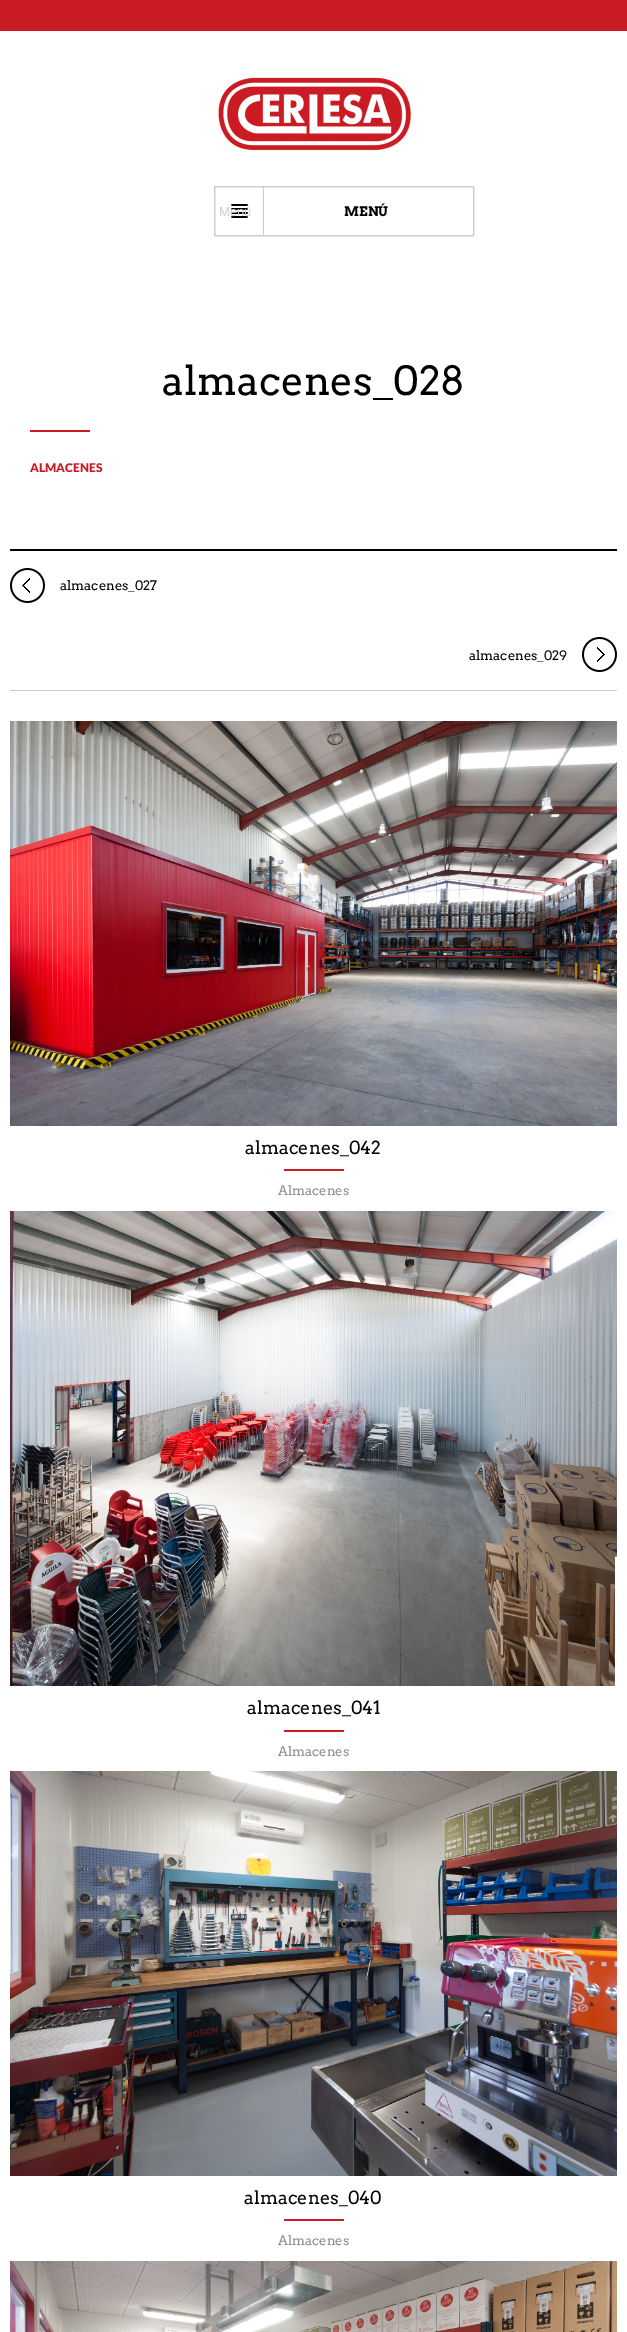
%!PS
<< /PageSize [627 2332] >> setpagedevice
/rgb { 3 { 255 div 3 1 roll } repeat setrgbcolor } def
/font { [ exch dup neg 0 0 3 -1 roll 0 0 ] selectfont } def
/text { moveto show } def
/roundrect { 5 dict begin { /r /h /w /y /x } { exch def } forall
  x r add y moveto x w add y 2 copy h add r arct x w add y h add x 1 index r arct
  x y h add x y r arct x y 2 copy exch w add exch r arct closepath end } def
/picture { 5 dict begin { /h /w /y /x /name } { exch def } forall
  gsave x y translate w h scale
  w h 8 [w 0 0 h 0 0] name (r) file false 3 colorimage grestore end } def
0 2332 translate 1 -1 scale
4 setmiterlimit
255 255 255 rgb
0 0 627 2332 rectfill
203 27 36 rgb
0 0 627 31 rectfill
(img_01.rgb) 218 77 193 74 picture
(img_02.rgb) 231 187 33 48 picture
204 204 204 rgb
214.5 186.5 259 49 rectstroke
214.5 186.5 259 49 1.5 roundrect stroke
203 27 36 rgb
30 430 60 2 rectfill
0 0 0 rgb
10 549 607 2 rectfill
204 204 204 rgb
10 690 607 1 rectfill
(img_03.rgb) 10 568 35 35 picture
(img_04.rgb) 582 637 35 35 picture
(img_05.rgb) 10 721 607 405 picture
203 27 36 rgb
284 1169 60 2 rectfill
(img_06.rgb) 10 1211 607 475 picture
284 1730 60 2 rectfill
(img_07.rgb) 10 1771 607 405 picture
284 2219 60 2 rectfill
(img_08.rgb) 10 2261 607 71 picture
/LiberationSans-Regular 13 font
205 205 205 rgb
(Menú) 219 216 text
/Arvo-Bold 13 font
0 0 0 rgb
(MENÚ) 344 216 text
/Arvo-Regular 40 font
(almacenes_028) 162 395 text
/Lato-Black 12 font
203 27 36 rgb
(ALMACENES) 30 472 text
/Arvo-Regular 13 font
0 0 0 rgb
(almacenes_027) 60 590 text
(almacenes_029) 469 660 text
/Arvo-Regular 18 font
(almacenes_042) 245 1154 text
/Arvo-Regular 13 font
141 141 141 rgb
(Almacenes) 278 1195 text
/Arvo-Regular 18 font
0 0 0 rgb
(almacenes_041) 247 1714 text
/Arvo-Regular 13 font
141 141 141 rgb
(Almacenes) 278 1756 text
/Arvo-Regular 18 font
0 0 0 rgb
(almacenes_040) 244 2204 text
/Arvo-Regular 13 font
141 141 141 rgb
(Almacenes) 278 2245 text
showpage
